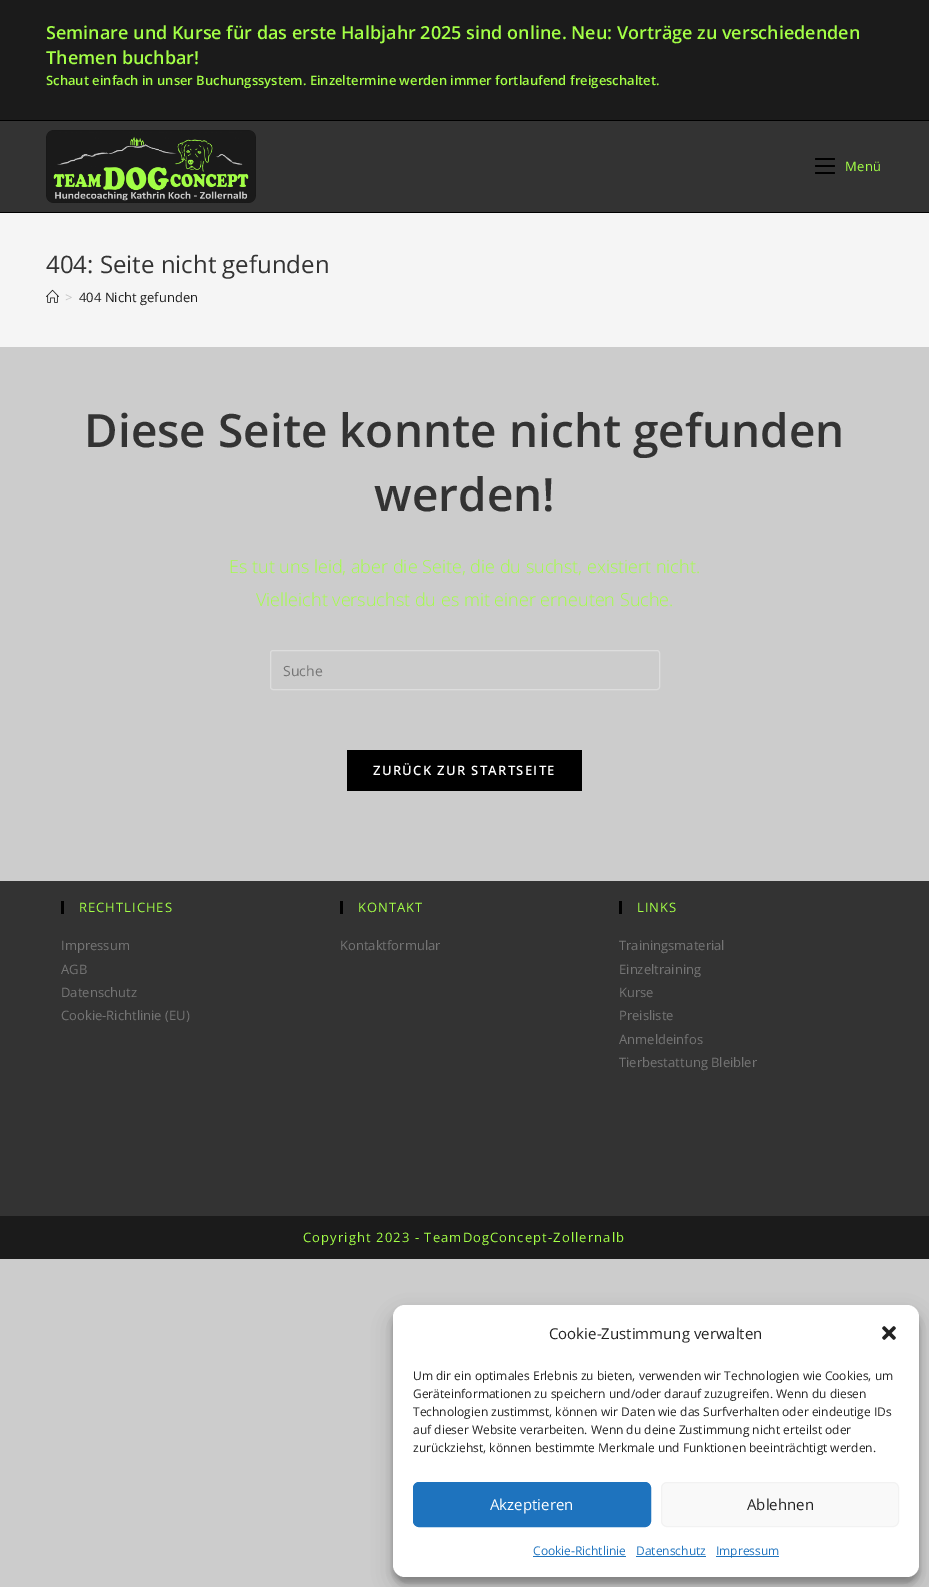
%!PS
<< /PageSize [929 1587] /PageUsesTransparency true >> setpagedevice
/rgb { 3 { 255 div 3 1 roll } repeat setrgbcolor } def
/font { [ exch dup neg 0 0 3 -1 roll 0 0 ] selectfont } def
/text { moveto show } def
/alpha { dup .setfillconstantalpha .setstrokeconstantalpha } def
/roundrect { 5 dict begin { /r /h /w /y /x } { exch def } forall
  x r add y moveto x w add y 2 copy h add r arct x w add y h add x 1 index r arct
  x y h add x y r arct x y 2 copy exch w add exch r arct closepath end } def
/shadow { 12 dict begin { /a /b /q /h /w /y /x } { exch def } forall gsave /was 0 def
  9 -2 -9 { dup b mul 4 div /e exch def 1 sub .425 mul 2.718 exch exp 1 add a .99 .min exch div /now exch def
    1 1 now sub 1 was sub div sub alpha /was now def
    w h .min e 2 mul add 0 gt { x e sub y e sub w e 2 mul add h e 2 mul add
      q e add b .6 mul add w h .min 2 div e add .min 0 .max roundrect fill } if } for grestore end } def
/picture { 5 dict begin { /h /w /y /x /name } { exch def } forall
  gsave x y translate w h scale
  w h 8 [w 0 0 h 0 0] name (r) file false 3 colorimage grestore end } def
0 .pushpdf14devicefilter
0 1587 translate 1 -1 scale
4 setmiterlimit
204 204 204 rgb
0 0 929 1587 rectfill
27 27 27 rgb
0 0 929 120 rectfill
0 0 0 rgb
0 120 929 1 rectfill
51 51 51 rgb
0 121 929 91 rectfill
0 0 0 rgb
0 212 929 1 rectfill
(img_01.rgb) 46 130 210 73 picture
815 158 20 2 1 roundrect fill
815 165 20 2 1 roundrect fill
815 172 20 2 1 roundrect fill
245 245 245 rgb
0 213 929 134 rectfill
(img_02.rgb) 46 289 13 14 picture
221 221 221 rgb
270.5 650.5 389 39 2.5 roundrect stroke
0 0 0 rgb
347 750 235 41 rectfill
51 51 51 rgb
0 881 929 335 rectfill
0 0 0 rgb
61 901 3 13 rectfill
340 901 3 13 rectfill
619 901 3 13 rectfill
27 27 27 rgb
0 1216 929 43 rectfill
0 0 0 rgb
393 1311 526 272 12 3 0.23 shadow
393 1315 526 272 12 10 0.19 shadow
255 255 255 rgb
393 1305 526 272 12 roundrect fill
(img_03.rgb) 882 1326 14 14 picture
30 115 190 rgb
413.5 1482.5 237 44 5.5 roundrect gsave fill grestore
stroke
249 249 249 rgb
661.5 1482.5 237 44 5.5 roundrect gsave fill grestore
242 242 242 rgb
stroke
30 115 190 rgb
533 1556 93 1 rectfill
636 1556 70 1 rectfill
716 1556 63 1 rectfill
/OpenSans-SemiBold 18 font
163 255 70 rgb
(Seminare und Kurse für das erste Halbjahr 2025 sind online. Neu: Vorträge zu verschiedenden) 46 39 text
(Themen buchbar!) 46 64 text
/OpenSans-SemiBold 13 font
(Schaut einfach in unser Buchungssystem. Einzeltermine werden immer fortlaufend freigeschaltet.) 46 85 text
/OpenSans-Regular 13 font
845 171 moveto 0.5 0 (Menü) ashow
/OpenSans-Regular 24 font
51 51 51 rgb
(404: Seite nicht gefunden) 46 273 text
/OpenSans-Regular 13 font
198 198 198 rgb
(>) 65 302 text
27 27 27 rgb
(404 Nicht gefunden) 79 302 text
/OpenSans-SemiBold 46 font
51 51 51 rgb
(Diese Seite konnte nicht gefunden) 84 447 text
(werden!) 374 511 text
/OpenSans-Light 18 font
163 255 70 rgb
(Es tut uns leid, aber die Seite, die du suchst, existiert nicht.) 229 573 text
(Vielleicht versuchst du es mit einer erneuten Suche.) 256 606 text
/OpenSans-Regular 14 font
117 117 117 rgb
(Suche) 283 676 text
/OpenSans-SemiBold 13 font
255 255 255 rgb
373 775 moveto 1.3 0 (ZURÜCK ZUR STARTSEITE) ashow
/OpenSans-Regular 13 font
163 255 70 rgb
79 912 moveto 1 0 (RECHTLICHES) ashow
117 117 117 rgb
(Impressum) 61 950 text
(AGB) 61 974 text
(Datenschutz) 61 997 text
(Cookie-Richtlinie \(EU\)) 61 1020 text
163 255 70 rgb
358 912 moveto 1 0 (KONTAKT) ashow
117 117 117 rgb
(Kontaktformular) 340 950 text
163 255 70 rgb
637 912 moveto 1 0 (LINKS) ashow
117 117 117 rgb
(Trainingsmaterial) 619 950 text
(Einzeltraining) 619 974 text
(Kurse) 619 997 text
(Preisliste) 619 1020 text
(Anmeldeinfos) 619 1044 text
(Tierbestattung Bleibler) 619 1067 text
163 255 70 rgb
303 1242 moveto 1.1 0 (Copyright 2023 - TeamDogConcept-Zollernalb) ashow
/OpenSans-Regular 15 font
34 34 34 rgb
(Cookie-Zustimmung verwalten) 549 1339 text
/OpenSans-Regular 12 font
(Um dir ein optimales Erlebnis zu bieten, verwenden wir Technologien wie Cookies, um) 413 1380 text
(Geräteinformationen zu speichern und/oder darauf zuzugreifen. Wenn du diesen) 413 1398 text
(Technologien zustimmst, können wir Daten wie das Surfverhalten oder eindeutige IDs) 413 1416 text
(auf dieser Website verarbeiten. Wenn du deine Zustimmung nicht erteilst oder) 413 1434 text
(zurückziehst, können bestimmte Merkmale und Funktionen beeinträchtigt werden.) 413 1452 text
/OpenSans-Regular 15 font
255 255 255 rgb
(Akzeptieren) 490 1510 text
34 34 34 rgb
(Ablehnen) 747 1510 text
/OpenSans-Regular 12 font
30 115 190 rgb
(Cookie-Richtlinie) 533 1555 text
(Datenschutz) 636 1555 text
(Impressum) 716 1555 text
.poppdf14devicefilter showpage
